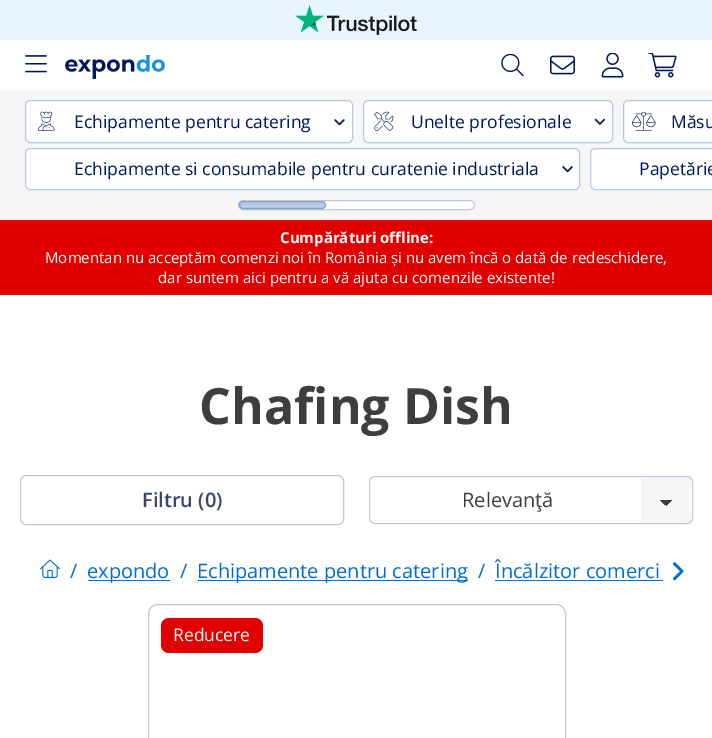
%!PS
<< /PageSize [712 738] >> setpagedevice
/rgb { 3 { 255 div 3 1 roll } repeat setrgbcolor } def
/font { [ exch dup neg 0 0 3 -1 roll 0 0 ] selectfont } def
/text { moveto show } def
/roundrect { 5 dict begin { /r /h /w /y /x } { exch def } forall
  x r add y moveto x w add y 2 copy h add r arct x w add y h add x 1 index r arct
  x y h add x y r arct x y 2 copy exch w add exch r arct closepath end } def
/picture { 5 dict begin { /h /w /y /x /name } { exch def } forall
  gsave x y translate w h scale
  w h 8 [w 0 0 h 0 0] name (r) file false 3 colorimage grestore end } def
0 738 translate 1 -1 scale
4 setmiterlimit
255 255 255 rgb
0 0 712 738 rectfill
231 245 255 rgb
0 0 712 40 rectfill
(img_01.rgb) 295 5 122 30 picture
(img_02.rgb) 25 55 22 18 picture
(img_03.rgb) 65 55 100 24 picture
(img_04.rgb) 501 54 23 22 picture
(img_05.rgb) 550 55 25 20 picture
(img_06.rgb) 601 53 23 25 picture
(img_07.rgb) 648 53 29 25 picture
246 246 246 rgb
0 90 712 130 rectfill
255 255 255 rgb
25.5 100.5 327 42 4.5 roundrect gsave fill grestore
185 200 228 rgb
stroke
(img_08.rgb) 37 111 18 20 picture
(img_09.rgb) 334 119 11 7 picture
255 255 255 rgb
363.5 100.5 249 42 4.5 roundrect gsave fill grestore
185 200 228 rgb
stroke
(img_10.rgb) 374 111 20 20 picture
(img_11.rgb) 594 118 12 7 picture
255 255 255 rgb
628 100 moveto 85 0 rlineto 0 43 rlineto -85 0 rlineto -3 0 -5 -2 -5 -5 rcurveto 0 -33 rlineto 0 -3 2 -5 5 -5 rcurveto closepath fill
185 200 228 rgb
623.5 100.5 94 42 4.5 roundrect stroke
(img_12.rgb) 632 112 24 19 picture
255 255 255 rgb
25.5 148.5 554 41 4.5 roundrect gsave fill grestore
185 200 228 rgb
stroke
(img_13.rgb) 562 166 11 7 picture
255 255 255 rgb
595 148 moveto 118 0 rlineto 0 42 rlineto -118 0 rlineto -3 0 -5 -2 -5 -5 rcurveto 0 -32 rlineto 0 -3 2 -5 5 -5 rcurveto closepath fill
185 200 228 rgb
590.5 148.5 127 41 4.5 roundrect stroke
255 255 255 rgb
238.5 200.5 236 9 4.5 roundrect gsave fill grestore
185 200 228 rgb
stroke
239.5 201.5 86 7 3.5 roundrect gsave fill grestore
136 163 203 rgb
stroke
224 0 0 rgb
0 220 712 75 rectfill
197 199 201 rgb
20.5 475.5 323 49 5.5 roundrect stroke
gsave
369 476 324 48 6 roundrect clip newpath
246 246 246 rgb
641 478 50 46 rectfill
grestore
gsave 666 500 moveto 7 0 rlineto 0 6 rlineto -7 0 rlineto closepath clip newpath
<< /ShadingType 2 /ColorSpace /DeviceRGB /Coords [666 500 673 506] /Extend [true true] /Function << /FunctionType 3 /Domain [0 1] /Functions [<< /FunctionType 2 /Domain [0 1] /C0 [0.243 0.243 0.251] /C1 [0.243 0.243 0.251] /N 1 >> << /FunctionType 2 /Domain [0 1] /C0 [0.965 0.965 0.965] /C1 [0.965 0.965 0.965] /N 1 >>] /Bounds [0.5] /Encode [0 1 0 1] >> >> shfill grestore
gsave 660 500 moveto 6 0 rlineto 0 5 rlineto -6 0 rlineto closepath clip newpath
<< /ShadingType 2 /ColorSpace /DeviceRGB /Coords [660 506 666 500] /Extend [true true] /Function << /FunctionType 3 /Domain [0 1] /Functions [<< /FunctionType 2 /Domain [0 1] /C0 [0.965 0.965 0.965] /C1 [0.965 0.965 0.965] /N 1 >> << /FunctionType 2 /Domain [0 1] /C0 [0.243 0.243 0.251] /C1 [0.243 0.243 0.251] /N 1 >>] /Bounds [0.5] /Encode [0 1 0 1] >> >> shfill grestore
196 200 216 rgb
369.5 476.5 323 47 5.5 roundrect stroke
(img_14.rgb) 40 559 20 20 picture
0 110 206 rgb
88 580 82 1 rectfill
198 580 270 1 rectfill
495 580 168 1 rectfill
(img_15.rgb) 673 562 11 19 picture
197 199 201 rgb
148.5 604.5 417 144 9.5 roundrect stroke
224 0 0 rgb
161 618 102 35 8 roundrect fill
/OpenSans-Regular 17.5 font
0 23 90 rgb
(Echipamente pentru catering) 74 128 text
(Unelte profesionale) 411 128 text
(Măsu) 671 128 text
(Echipamente si consumabile pentru curatenie industriala) 74 175 text
(Papetărie) 639 175 text
/OpenSans-Bold 15 font
255 255 255 rgb
(Cumpărături offline:) 280 243 text
/OpenSans-Regular 15 font
(Momentan nu acceptăm comenzi noi în România și nu avem încă o dată de redeschidere,) 45 263 text
(dar suntem aici pentru a vă ajuta cu comenzile existente!) 158 283 text
/OpenSans-Bold 50 font
62 62 64 rgb
(Chafing Dish) 199 424 text
/OpenSans-SemiBold 20 font
58 69 112 rgb
(Filtru \(0\)) 142 507 text
/OpenSans-Regular 20 font
62 62 64 rgb
(Relevanţă) 462 507 text
0 110 206 rgb
(/) 70 578 text
(expondo) 87 578 text
(/) 180 578 text
(Echipamente pentru catering) 197 578 text
(/) 478 578 text
(Încălzitor comerci) 495 578 text
/OpenSans-Regular 17.5 font
255 255 255 rgb
(Reducere) 173 641 text
showpage
